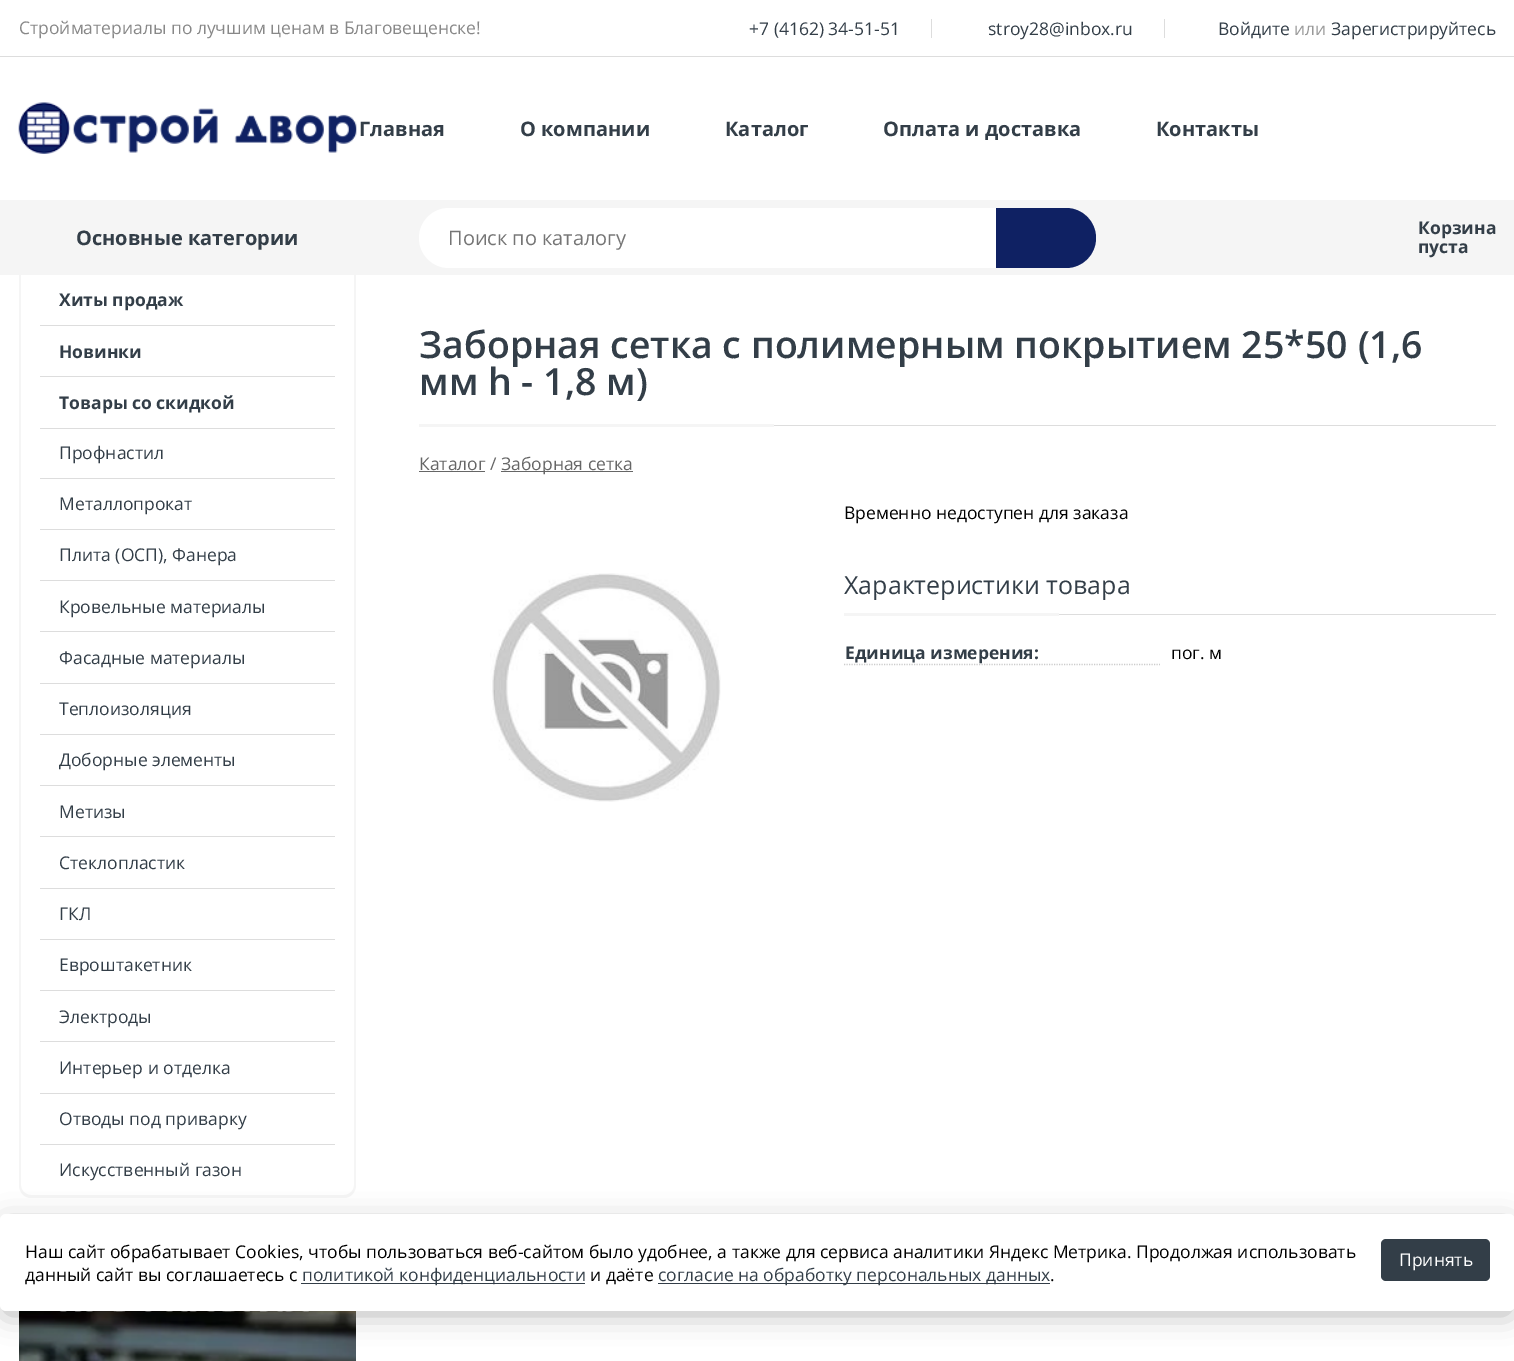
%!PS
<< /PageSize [1514 1361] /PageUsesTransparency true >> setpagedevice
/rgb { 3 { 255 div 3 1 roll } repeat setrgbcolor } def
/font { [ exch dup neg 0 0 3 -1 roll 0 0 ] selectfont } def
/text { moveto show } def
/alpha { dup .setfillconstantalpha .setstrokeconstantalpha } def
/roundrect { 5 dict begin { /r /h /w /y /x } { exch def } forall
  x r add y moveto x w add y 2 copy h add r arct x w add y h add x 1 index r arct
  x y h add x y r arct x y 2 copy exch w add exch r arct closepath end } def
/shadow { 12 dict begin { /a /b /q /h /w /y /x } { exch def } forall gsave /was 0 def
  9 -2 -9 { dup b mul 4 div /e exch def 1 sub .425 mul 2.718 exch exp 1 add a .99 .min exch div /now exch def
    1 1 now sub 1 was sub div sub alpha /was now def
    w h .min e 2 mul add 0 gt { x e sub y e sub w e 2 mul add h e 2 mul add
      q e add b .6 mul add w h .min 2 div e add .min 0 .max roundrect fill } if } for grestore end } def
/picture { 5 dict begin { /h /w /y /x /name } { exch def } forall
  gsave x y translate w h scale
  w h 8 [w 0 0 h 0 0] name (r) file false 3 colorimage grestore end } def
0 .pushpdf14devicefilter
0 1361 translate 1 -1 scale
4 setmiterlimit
255 255 255 rgb
0 0 1514 1361 rectfill
221 221 221 rgb
0 56 1514 1 rectfill
931 19 1 19 rectfill
1164 19 1 19 rectfill
(img_01.rgb) 18 102 339 52 picture
245 245 245 rgb
0 200 1514 75 rectfill
255 255 255 rgb
449 208 moveto 605 0 rlineto 0 60 rlineto -605 0 rlineto -16.5 0 -30 -13.5 -30 -30 rcurveto 0 -16.5 13.5 -30 30 -30 rcurveto closepath fill
15 33 99 rgb
996 208 moveto 70 0 rlineto 16.5 0 30 13.5 30 30 rcurveto 0 16.5 -13.5 30 -30 30 rcurveto -70 0 rlineto closepath fill
245 245 245 rgb
19 275 moveto 337 0 rlineto 0 910 rlineto 0 7 -5 13 -12 13 rcurveto -313 0 rlineto -7 0 -12 -6 -12 -13 rcurveto closepath 21 275 moveto 333 0 rlineto 0 910 rlineto 0 6 -5 10 -10 10 rcurveto -313 0 rlineto -5 0 -10 -4 -10 -10 rcurveto closepath eofill
221 221 221 rgb
40 325 295 1 rectfill
40 376 295 1 rectfill
40 428 295 1 rectfill
40 478 295 1 rectfill
40 529 295 1 rectfill
40 580 295 1 rectfill
40 631 295 1 rectfill
40 683 295 1 rectfill
40 734 295 1 rectfill
40 785 295 1 rectfill
40 836 295 1 rectfill
40 888 295 1 rectfill
40 939 295 1 rectfill
40 990 295 1 rectfill
40 1041 295 1 rectfill
40 1093 295 1 rectfill
40 1144 295 1 rectfill
(img_02.rgb) 19 1311 337 50 picture
774 425 722 1 rectfill
245 245 245 rgb
419 424 355 3 rectfill
102 102 102 rgb
419 471 66 1 rectfill
501 471 132 1 rectfill
(img_03.rgb) 490 573 231 229 picture
221 221 221 rgb
1059 614 437 1 rectfill
245 245 245 rgb
844 613 215 3 rectfill
204 204 204 rgb
1.2 setlinewidth
[1.25 1.25] 0 setdash
844 664.5 moveto 316 0 rlineto stroke
0 0 0 rgb
4 1224 1507 90 2.5 14.5 0.3 shadow
255 255 255 rgb
0 1214 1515 97 6 roundrect fill
51 62 72 rgb
1381 1239 109 42 5 roundrect fill
301 1283 284 1 rectfill
658 1283 392 1 rectfill
/OpenSans-Regular 17.5 font
136 136 136 rgb
(Стройматериалы по лучшим ценам в Благовещенске!) 19 34 text
51 62 72 rgb
(+7 \(4162\) 34-51-51) 749 35 text
(stroy28@inbox.ru) 988 35 text
(Войдите) 1218 35 text
153 153 153 rgb
(или) 1294 35 text
51 62 72 rgb
(Зарегистрируйтесь) 1331 35 text
/OpenSans-Bold 20 font
(Главная) 359 136 text
(О компании) 520 136 text
(Каталог) 725 136 text
(Оплата и доставка) 883 136 text
(Контакты) 1156 136 text
(Основные категории) 76 245 text
/OpenSans-Regular 20 font
117 117 117 rgb
(Поиск по каталогу) 448 245 text
/OpenSans-Bold 17.5 font
51 62 72 rgb
(Корзина) 1418 234 text
(пуста) 1418 253 text
(Хиты продаж) 59 306 text
(Новинки) 59 358 text
(Товары со скидкой) 59 409 text
/OpenSans-Regular 17.5 font
(Профнастил) 59 459 text
(Металлопрокат) 59 510 text
(Плита \(OСП\), Фанера) 59 561 text
(Кровельные материалы) 59 613 text
(Фасадные материалы) 59 664 text
(Теплоизоляция) 59 715 text
(Доборные элементы) 59 766 text
(Метизы) 59 818 text
(Стеклопластик) 59 869 text
(ГКЛ) 59 920 text
(Евроштакетник) 59 971 text
(Электроды) 59 1023 text
(Интерьер и отделка) 59 1074 text
(Отводы под приварку) 59 1125 text
(Искусственный газон) 59 1176 text
/OpenSans-SemiBold 37.5 font
(Заборная сетка с полимерным покрытием 25*50 \(1,6) 419 358 text
(мм h - 1,8 м\)) 419 395 text
/OpenSans-Regular 17.5 font
102 102 102 rgb
(Каталог /) 419 470 text
(Заборная сетка) 501 470 text
0 0 0 rgb
(Временно недоступен для заказа) 844 519 text
/OpenSans-Regular 25 font
51 62 72 rgb
(Характеристики товара) 844 594 text
/OpenSans-Bold 17.5 font
(Единица измерения:) 845 659 text
/OpenSans-Regular 17.5 font
0 0 0 rgb
(пог. м) 1171 659 text
(Наш сайт обрабатывает Cookies, чтобы пользоваться веб-сайтом было удобнее, а также для сервиса аналитики Яндекс Метрика. Продолжая использовать) 25 1258 text
255 255 255 rgb
(Принять) 1399 1266 text
0 0 0 rgb
(данный сайт вы соглашаетесь с) 25 1281 text
51 62 72 rgb
(политикой конфиденциальности) 302 1281 text
0 0 0 rgb
(и даёте) 590 1281 text
51 62 72 rgb
(согласие на обработку персональных данных) 658 1281 text
0 0 0 rgb
(.) 1050 1281 text
.poppdf14devicefilter showpage
